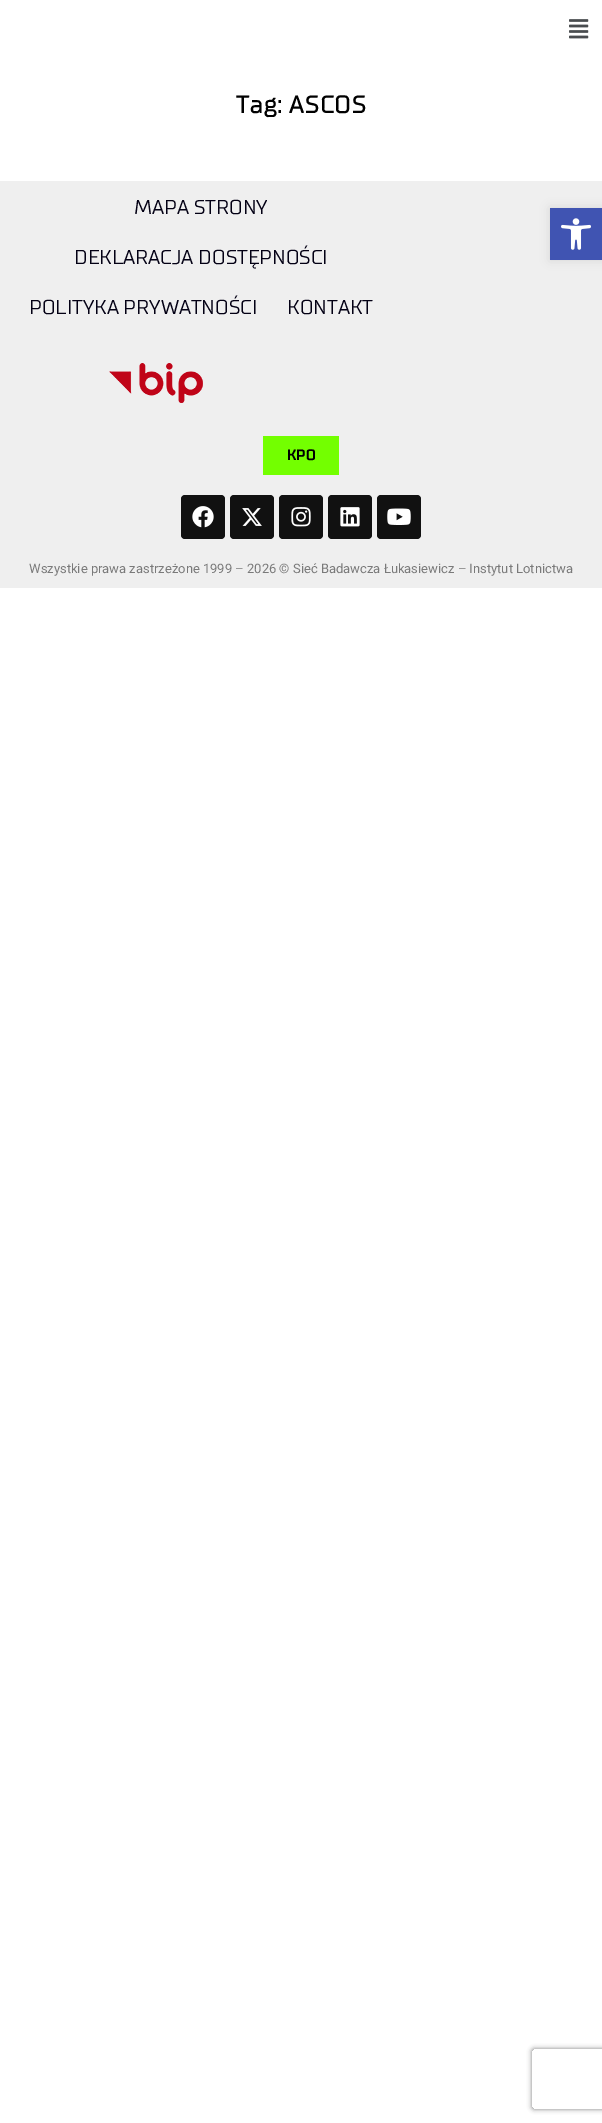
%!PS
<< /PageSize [602 2123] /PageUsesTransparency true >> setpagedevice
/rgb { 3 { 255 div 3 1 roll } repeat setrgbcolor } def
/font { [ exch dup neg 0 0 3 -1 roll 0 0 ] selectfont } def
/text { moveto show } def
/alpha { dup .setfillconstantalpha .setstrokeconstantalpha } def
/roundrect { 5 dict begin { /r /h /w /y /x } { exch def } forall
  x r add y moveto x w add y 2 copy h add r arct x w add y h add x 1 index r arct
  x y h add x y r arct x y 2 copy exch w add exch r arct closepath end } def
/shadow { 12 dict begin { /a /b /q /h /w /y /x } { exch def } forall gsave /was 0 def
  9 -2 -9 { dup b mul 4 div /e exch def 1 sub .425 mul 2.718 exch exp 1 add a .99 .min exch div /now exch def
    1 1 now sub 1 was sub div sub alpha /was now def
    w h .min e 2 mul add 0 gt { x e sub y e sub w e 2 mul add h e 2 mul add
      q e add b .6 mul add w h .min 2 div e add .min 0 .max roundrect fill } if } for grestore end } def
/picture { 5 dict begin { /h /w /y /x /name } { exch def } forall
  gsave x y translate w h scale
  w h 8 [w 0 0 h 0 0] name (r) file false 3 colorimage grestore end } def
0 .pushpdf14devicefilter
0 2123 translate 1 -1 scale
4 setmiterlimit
255 255 255 rgb
0 0 602 2123 rectfill
(img_01.rgb) 569 19 20 20 picture
239 239 239 rgb
0 181 602 407 rectfill
(img_02.rgb) 109 363 94 40 picture
115 255 0 rgb
263 436 76 39 rectfill
17 17 17 rgb
181 495 44 44 4 roundrect fill
(img_03.rgb) 192 506 22 22 picture
230 495 44 44 4 roundrect fill
(img_04.rgb) 242 508 20 18 picture
279 495 44 44 4 roundrect fill
(img_05.rgb) 291 507 20 20 picture
328 495 44 44 4 roundrect fill
(img_06.rgb) 340 507 20 20 picture
377 495 44 44 4 roundrect fill
(img_07.rgb) 387 508 24 17 picture
0 0 0 rgb
550 208 52 52 0 5 0.1 shadow
64 84 178 rgb
550 208 52 52 rectfill
(img_08.rgb) 561 218 30 32 picture
gsave
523 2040 moveto 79 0 rlineto 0 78 rlineto -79 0 rlineto closepath 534 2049 moveto 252 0 rlineto 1 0 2 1 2 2 rcurveto 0 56 rlineto 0 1 -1 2 -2 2 rcurveto -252 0 rlineto -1 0 -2 -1 -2 -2 rcurveto 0 -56 rlineto 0 -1 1 -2 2 -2 rcurveto closepath eoclip newpath
128 128 128 rgb
532 2049 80 60 2 2.5 1 shadow
grestore
/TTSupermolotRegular-Bold 24 font
0 0 0 rgb
236 113 moveto 1 0 (Tag: ASCOS) ashow
/TTSupermolotRegular-Regular 20 font
3 0 20 rgb
(MAPA STRONY) 134 214 text
(DEKLARACJA DOSTĘPNOŚCI) 74 264 text
(POLITYKA PRYWATNOŚCI) 29 314 text
(KONTAKT) 287 314 text
/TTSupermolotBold-Bold 15 font
0 0 0 rgb
(KPO) 287 460 text
/Roboto-Regular 13 font
122 122 122 rgb
(Wszystkie prawa zastrzeżone 1999 – 2026 © Sieć Badawcza Łukasiewicz – Instytut Lotnictwa) 29 573 text
.poppdf14devicefilter showpage
